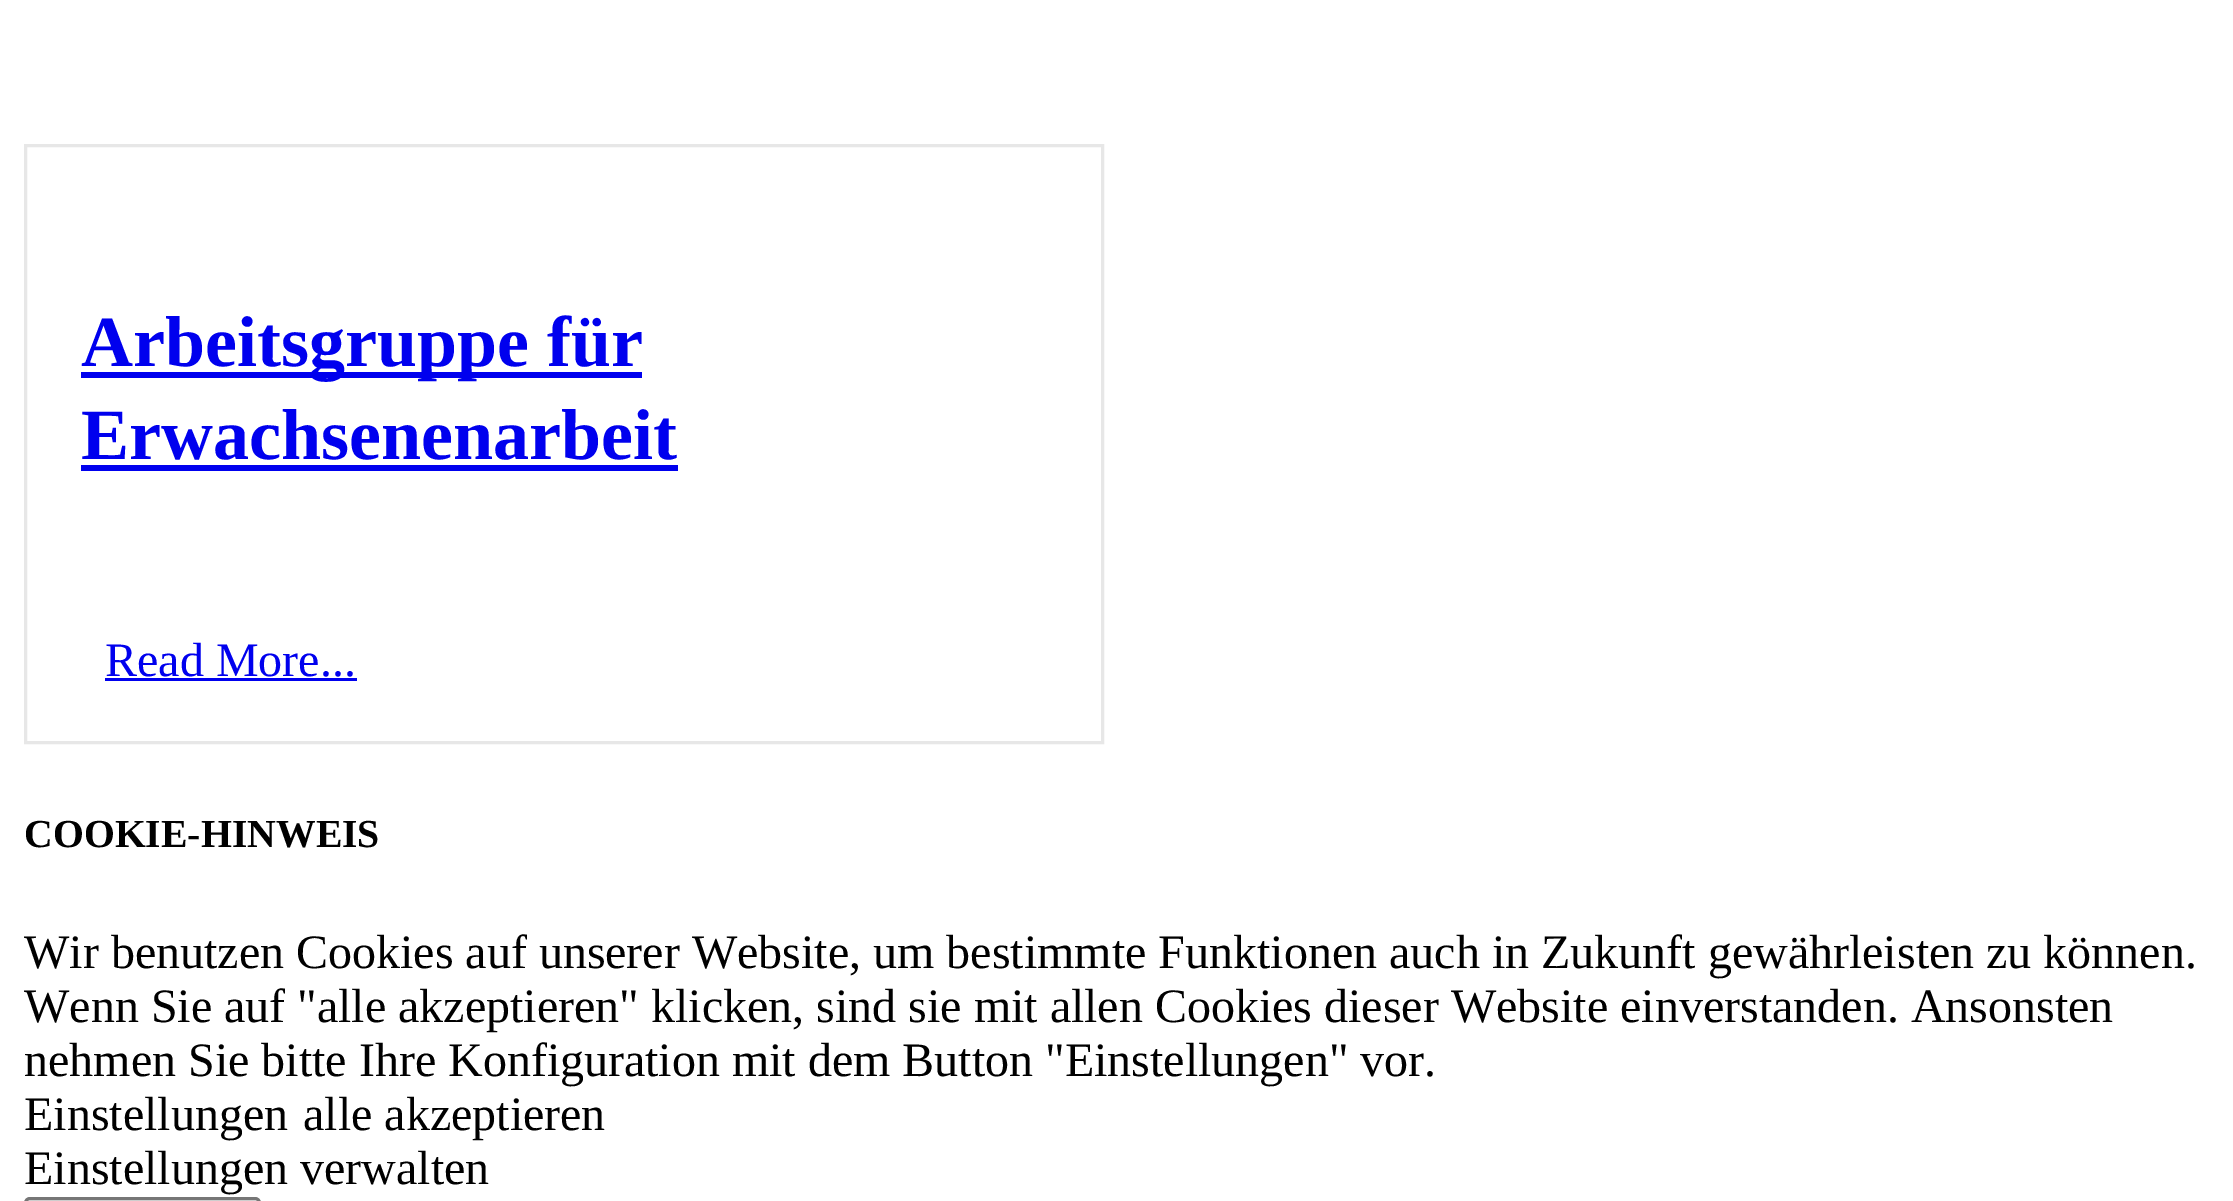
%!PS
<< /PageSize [2233 1201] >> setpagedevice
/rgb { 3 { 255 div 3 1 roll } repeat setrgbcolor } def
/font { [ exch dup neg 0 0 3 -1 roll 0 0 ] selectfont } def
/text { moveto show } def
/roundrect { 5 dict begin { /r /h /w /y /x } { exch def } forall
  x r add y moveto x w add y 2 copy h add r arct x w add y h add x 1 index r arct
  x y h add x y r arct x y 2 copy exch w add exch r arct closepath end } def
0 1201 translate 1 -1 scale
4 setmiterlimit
255 255 255 rgb
0 0 2233 1201 rectfill
231 231 231 rgb
3 setlinewidth
25.5 145.5 1077 597 rectstroke
0 0 238 rgb
81 372 561 6 rectfill
81 465 597 6 rectfill
105 678 252 3 rectfill
239 239 239 rgb
25.5 1198.5 234 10 4.5 roundrect gsave fill grestore
118 118 118 rgb
stroke
/LiberationSerif-Bold 72 font
0 0 238 rgb
(Arbeitsgruppe für) 81 366 text
(Erwachsenenarbeit) 81 459 text
/LiberationSerif-Regular 48 font
(Read More...) 105 676 text
/LiberationSerif-Bold 39.75 font
0 0 0 rgb
(COOKIE-HINWEIS) 24 847 text
/LiberationSerif-Regular 48 font
(Wir benutzen Cookies auf unserer Website, um bestimmte Funktionen auch in Zukunft gewährleisten zu können.) 24 968 text
(Wenn Sie auf "alle akzeptieren" klicken, sind sie mit allen Cookies dieser Website einverstanden. Ansonsten) 24 1022 text
(nehmen Sie bitte Ihre Konfiguration mit dem Button "Einstellungen" vor.) 24 1076 text
(Einstellungen) 24 1130 text
(alle akzeptieren) 303 1130 text
(Einstellungen verwalten) 24 1184 text
showpage
